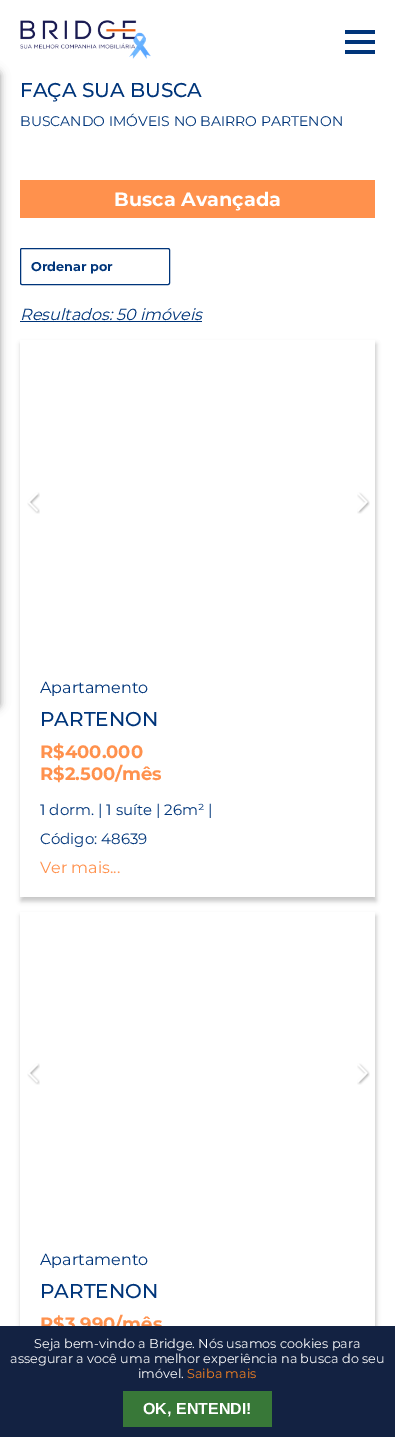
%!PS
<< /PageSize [395 1437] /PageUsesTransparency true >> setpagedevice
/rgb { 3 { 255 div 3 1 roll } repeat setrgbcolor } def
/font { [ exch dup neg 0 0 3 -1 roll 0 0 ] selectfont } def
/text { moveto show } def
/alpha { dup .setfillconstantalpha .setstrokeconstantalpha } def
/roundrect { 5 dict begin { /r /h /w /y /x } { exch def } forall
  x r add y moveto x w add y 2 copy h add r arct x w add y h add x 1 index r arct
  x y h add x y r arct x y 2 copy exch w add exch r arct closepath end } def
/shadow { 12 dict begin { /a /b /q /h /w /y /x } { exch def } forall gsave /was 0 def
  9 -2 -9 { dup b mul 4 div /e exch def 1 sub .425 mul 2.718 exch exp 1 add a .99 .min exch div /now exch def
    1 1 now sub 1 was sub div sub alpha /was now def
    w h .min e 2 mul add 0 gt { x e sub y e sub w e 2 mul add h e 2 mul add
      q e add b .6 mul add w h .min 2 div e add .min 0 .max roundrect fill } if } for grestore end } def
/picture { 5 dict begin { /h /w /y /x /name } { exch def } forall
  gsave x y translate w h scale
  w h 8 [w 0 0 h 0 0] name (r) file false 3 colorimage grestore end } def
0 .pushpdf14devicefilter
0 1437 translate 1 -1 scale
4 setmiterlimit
255 255 255 rgb
0 0 395 1437 rectfill
(img_01.rgb) 20 20 131 39 picture
0 53 122 rgb
345 30 30 4 rectfill
345 40 30 4 rectfill
345 50 30 4 rectfill
0 0 0 rgb
-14 71 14 638 5 3 0.23 shadow
-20 70 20 638 5 5 0.19 shadow
255 145 77 rgb
20 180 355 38 rectfill
0 53 122 rgb
20.5 248.5 149 36 1.5 roundrect stroke
20 321 182 1 rectfill
gsave
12 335 moveto 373 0 rlineto 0 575 rlineto -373 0 rlineto closepath 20 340 moveto 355 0 rlineto 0 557 rlineto -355 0 rlineto closepath eoclip newpath
0 0 0 rgb
21 344 355 557 0 2.5 0.23 shadow
grestore
(img_02.rgb) 27 492 13 22 picture
(img_03.rgb) 357 492 13 22 picture
gsave
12 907 moveto 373 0 rlineto 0 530 rlineto -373 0 rlineto closepath 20 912 moveto 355 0 rlineto 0 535 rlineto -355 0 rlineto closepath eoclip newpath
0 0 0 rgb
21 916 355 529 0 2.5 0.23 shadow
grestore
(img_04.rgb) 27 1063 13 22 picture
(img_05.rgb) 357 1063 13 22 picture
/Montserrat-Medium 20 font
(FAÇA SUA BUSCA) 20 97 text
/Montserrat-Regular 14 font
(BUSCANDO IMÓVEIS NO BAIRRO PARTENON) 20 126 text
/Montserrat-Bold 19.25 font
255 255 255 rgb
(Busca Avançada) 114 206 text
/Montserrat-Bold 12.8 font
0 53 122 rgb
(Ordenar por) 31 271 text
/Montserrat-Italic 16 font
(Resultados: 50 imóveis) 20 320 text
/Montserrat-Regular 16 font
(Apartamento) 40 693 text
/Montserrat-Medium 20 font
(PARTENON) 40 726 text
/Montserrat-Bold 18 font
255 145 77 rgb
(R$400.000) 40 758 text
(R$2.500/mês) 40 780 text
/Montserrat-Regular 15 font
0 53 122 rgb
(1 dorm. | 1 suíte | 26m² |) 40 815 text
(Código: 48639) 40 844 text
/Montserrat-Regular 16 font
255 145 77 rgb
(Ver mais...) 40 873 text
0 53 122 rgb
(Apartamento) 40 1265 text
/Montserrat-Medium 20 font
(PARTENON) 40 1298 text
/Montserrat-Bold 18 font
255 145 77 rgb
(R$3.990/mês) 40 1330 text
19 34 66 rgb
0 1326 395 111 rectfill
/Montserrat-Regular 12.8 font
255 255 255 rgb
(Seja bem-vindo a Bridge. Nós usamos cookies para) 34 1348 text
(assegurar a você uma melhor experiência na busca do seu) 10 1363 text
(imóvel.) 138 1378 text
245 130 32 rgb
(Saiba mais) 187 1378 text
56 120 56 rgb
123 1391 149 36 rectfill
/LiberationSans-Bold 16 font
255 255 255 rgb
(OK, ENTENDI!) 143 1414 text
.poppdf14devicefilter showpage
